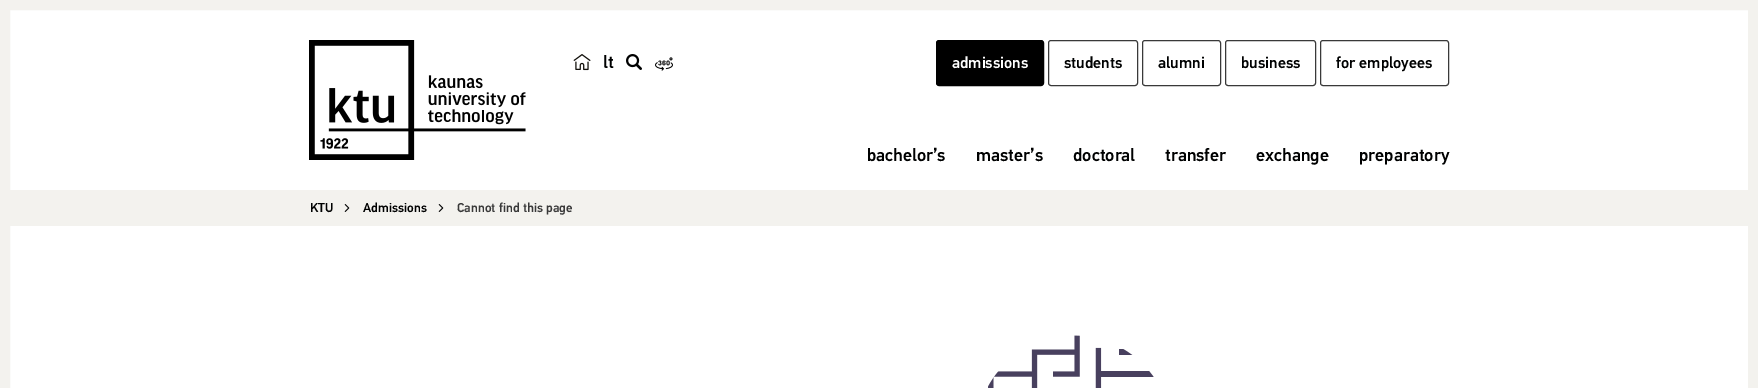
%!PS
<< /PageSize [1758 388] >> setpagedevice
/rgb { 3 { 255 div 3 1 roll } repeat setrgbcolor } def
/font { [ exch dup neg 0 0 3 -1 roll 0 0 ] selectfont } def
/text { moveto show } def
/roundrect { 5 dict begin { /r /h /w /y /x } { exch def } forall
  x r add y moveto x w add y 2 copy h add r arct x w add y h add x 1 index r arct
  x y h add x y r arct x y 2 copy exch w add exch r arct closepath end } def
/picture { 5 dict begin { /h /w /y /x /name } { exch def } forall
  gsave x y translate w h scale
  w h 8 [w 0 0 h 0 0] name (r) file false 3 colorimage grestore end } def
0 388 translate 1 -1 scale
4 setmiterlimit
255 255 255 rgb
0 0 1758 388 rectfill
243 242 238 rgb
10 setlinewidth
5 5 1748 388 rectstroke
(img_01.rgb) 309 40 217 120 picture
(img_02.rgb) 573 54 18 17 picture
(img_03.rgb) 626 54 16 16 picture
(img_04.rgb) 655 57 18 14 picture
0 0 0 rgb
936.5 40.5 107 45 2.5 roundrect gsave fill grestore
1 setlinewidth
stroke
57 57 57 rgb
1048.5 40.5 89 45 2.5 roundrect stroke
1142.5 40.5 78 45 2.5 roundrect stroke
1225.5 40.5 90 45 2.5 roundrect stroke
1320.5 40.5 128 45 2.5 roundrect stroke
243 242 238 rgb
10 190 1738 36 rectfill
(img_05.rgb) 344 204 6 8 picture
(img_05.rgb) 438 204 6 8 picture
(img_06.rgb) 988 335 166 53 picture
/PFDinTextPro-Medium 18 font
0 1 1 rgb
(lt) 603 68 text
/PFDinTextPro-Medium 16 font
255 255 255 rgb
(admissions) 952 68 text
0 1 1 rgb
(students) 1064 68 text
(alumni) 1158 68 text
(business) 1241 68 text
(for employees) 1336 68 text
/PFDinTextPro-Medium 18 font
(bachelor’s) 867 161 text
(master’s) 976 161 text
(doctoral) 1073 161 text
(transfer) 1165 161 text
(exchange) 1256 161 text
(preparatory) 1359 161 text
/PFDinTextPro-Medium 13 font
(KTU) 310 212 text
(Admissions) 363 212 text
57 57 57 rgb
(Cannot find this page) 457 212 text
showpage
